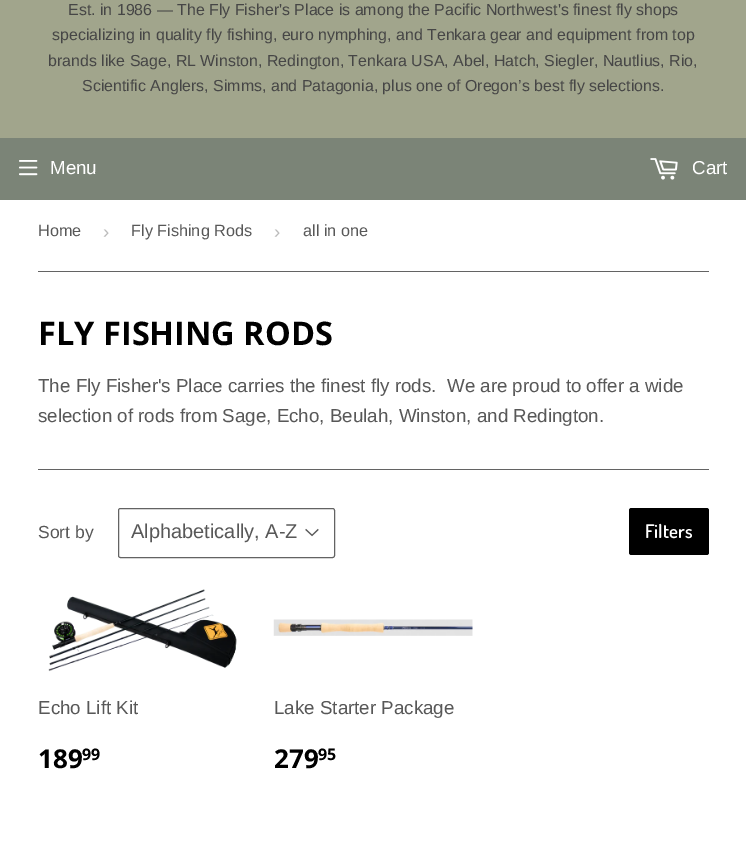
%!PS
<< /PageSize [746 850] >> setpagedevice
/rgb { 3 { 255 div 3 1 roll } repeat setrgbcolor } def
/font { [ exch dup neg 0 0 3 -1 roll 0 0 ] selectfont } def
/text { moveto show } def
/roundrect { 5 dict begin { /r /h /w /y /x } { exch def } forall
  x r add y moveto x w add y 2 copy h add r arct x w add y h add x 1 index r arct
  x y h add x y r arct x y 2 copy exch w add exch r arct closepath end } def
/picture { 5 dict begin { /h /w /y /x /name } { exch def } forall
  gsave x y translate w h scale
  w h 8 [w 0 0 h 0 0] name (r) file false 3 colorimage grestore end } def
0 850 translate 1 -1 scale
4 setmiterlimit
255 255 255 rgb
0 0 746 850 rectfill
161 165 140 rgb
0 0 746 138 rectfill
123 132 119 rgb
0 138 746 62 rectfill
(img_01.rgb) 19 160 19 16 picture
(img_02.rgb) 650 158 28 22 picture
99 99 99 rgb
38 271 671 1 rectfill
38 469 671 1 rectfill
(img_03.rgb) 305 528 14 9 picture
118.5 508.5 216 49 2 roundrect stroke
0 0 0 rgb
629 508 80 47 2.5 roundrect fill
(img_04.rgb) 48 589 189 83 picture
(img_05.rgb) 273 619 200 17 picture
/LiberationSans-Regular 15.95 font
70 70 70 rgb
(Est. in 1986 — The Fly Fisher's Place is among the Pacific Northwest's finest fly shops) 68 15 text
(specializing in quality fly fishing, euro nymphing, and Tenkara gear and equipment from top) 52 40 text
(brands like Sage, RL Winston, Redington, Tenkara USA, Abel, Hatch, Siegler, Nautlius, Rio,) 48 66 text
(Scientific Anglers, Simms, and Patagonia, plus one of Oregon’s best fly selections.) 82 91 text
/LiberationSans-Regular 18.75 font
255 255 255 rgb
(Menu) 50 174 text
(Cart) 692 174 text
/LiberationSans-Regular 16.25 font
88 88 88 rgb
(Home) 38 236 text
/LiberationSans-Regular 18.75 font
187 187 187 rgb
(›) 103 238 text
/LiberationSans-Regular 16.25 font
88 88 88 rgb
(Fly Fishing Rods) 131 236 text
/LiberationSans-Regular 18.75 font
187 187 187 rgb
(›) 274 238 text
/LiberationSans-Regular 16.25 font
88 88 88 rgb
(all in one) 303 236 text
/OpenSans-Bold 32.5 font
0 0 0 rgb
(FLY FISHING RODS) 38 345 text
/LiberationSans-Regular 18.75 font
88 88 88 rgb
(The Fly Fisher's Place carries the finest fly rods.  We are proud to offer a wide) 38 392 text
(selection of rods from Sage, Echo, Beulah, Winston, and Redington.) 38 422 text
/LiberationSans-Regular 17.5 font
(Sort by) 38 538 text
/LiberationSans-Regular 20 font
(Alphabetically, A-Z) 131 538 text
/Dosis-SemiBold 18.75 font
255 255 255 rgb
(Filters) 645 538 text
/LiberationSans-Regular 18.75 font
88 88 88 rgb
(Echo Lift Kit) 38 714 text
/OpenSans-Bold 26 font
0 0 0 rgb
(189) 38 768 text
/OpenSans-Bold 16 font
(99) 82 760 text
/LiberationSans-Regular 18.75 font
88 88 88 rgb
(Lake Starter Package) 274 714 text
/OpenSans-Bold 26 font
0 0 0 rgb
(279) 274 768 text
/OpenSans-Bold 16 font
(95) 318 760 text
showpage
